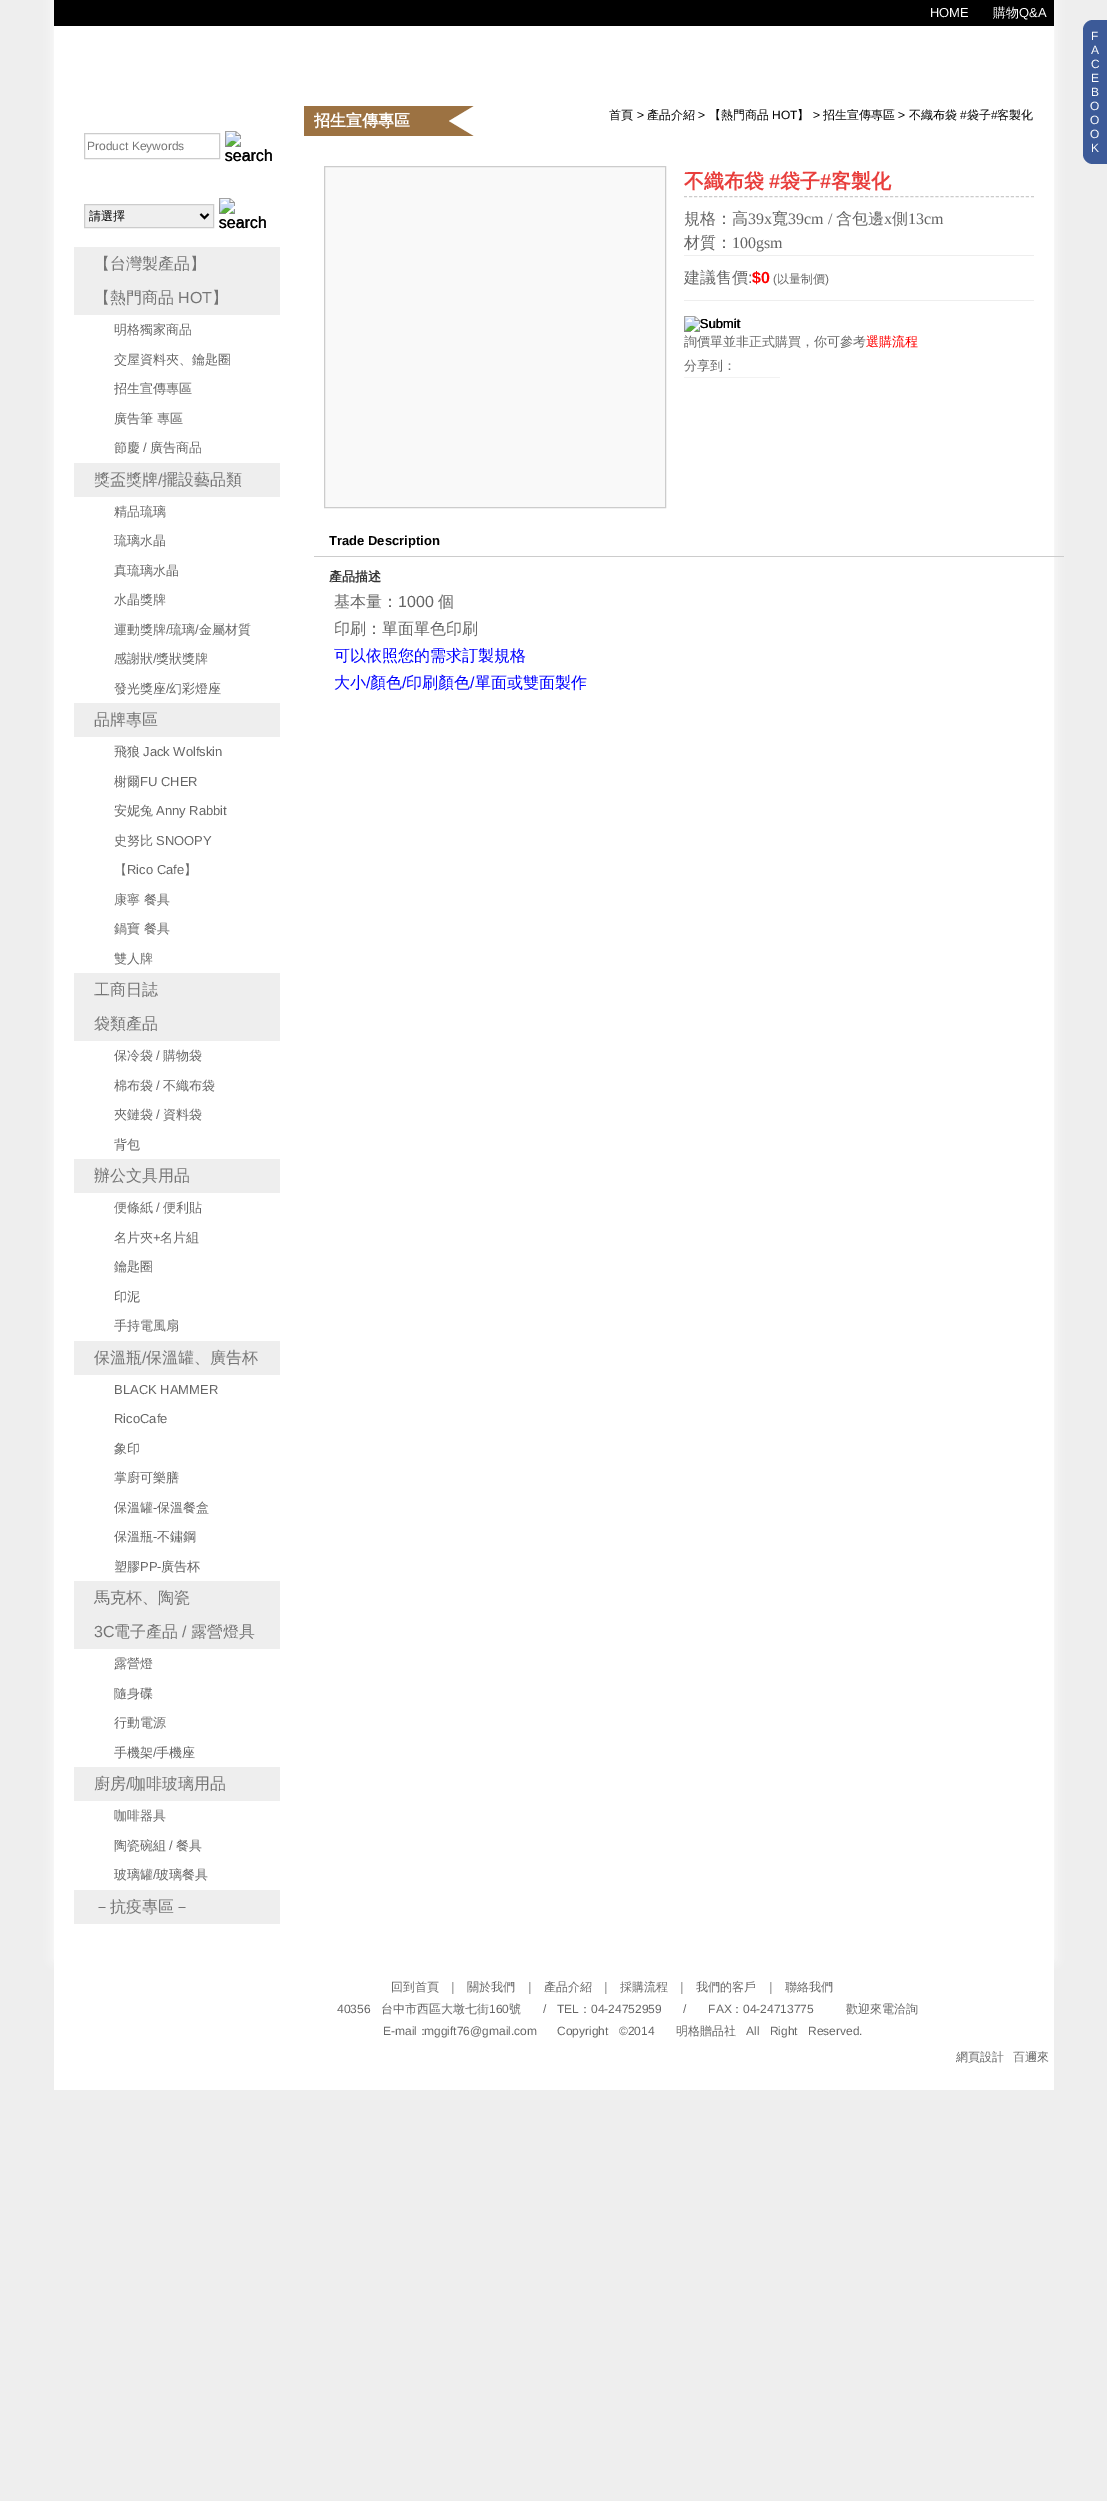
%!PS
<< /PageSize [1107 2501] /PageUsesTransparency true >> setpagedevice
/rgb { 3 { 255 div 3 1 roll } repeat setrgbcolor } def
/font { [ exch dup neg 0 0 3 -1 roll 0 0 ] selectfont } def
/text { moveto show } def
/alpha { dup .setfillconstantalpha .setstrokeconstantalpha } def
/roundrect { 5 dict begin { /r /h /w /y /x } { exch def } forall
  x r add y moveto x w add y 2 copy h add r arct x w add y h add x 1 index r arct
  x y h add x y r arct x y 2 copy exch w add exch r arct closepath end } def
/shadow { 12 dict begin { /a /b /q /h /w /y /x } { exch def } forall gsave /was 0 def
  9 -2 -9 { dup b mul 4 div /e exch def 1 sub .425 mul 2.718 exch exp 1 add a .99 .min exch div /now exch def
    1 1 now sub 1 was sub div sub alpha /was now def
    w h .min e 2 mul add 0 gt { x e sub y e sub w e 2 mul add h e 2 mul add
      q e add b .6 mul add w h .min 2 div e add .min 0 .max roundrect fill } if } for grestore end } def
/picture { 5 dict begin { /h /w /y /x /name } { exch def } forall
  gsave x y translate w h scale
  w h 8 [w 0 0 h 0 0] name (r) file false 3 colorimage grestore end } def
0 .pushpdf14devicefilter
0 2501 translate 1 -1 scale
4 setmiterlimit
238 238 238 rgb
0 0 1107 2501 rectfill
255 255 255 rgb
54 0 1000 1960 0 5 1 shadow
54 26 1000 2064 rectfill
0 0 0 rgb
54 0 1000 26 rectfill
60 90 152 rgb
1093 20 moveto 14 0 rlineto 0 144 rlineto -14 0 rlineto -5.5 0 -10 -4.5 -10 -10 rcurveto 0 -124 rlineto 0 -5.5 4.5 -10 10 -10 rcurveto closepath fill
204 204 204 rgb
84.5 133.5 135 25 rectstroke
(img_01.rgb) 225 131 47 30 picture
239 239 239 rgb
84.5 204.5 moveto 129 0 rlineto 0 23 rlineto -129 0 rlineto closepath gsave fill grestore
204 204 204 rgb
stroke
0 0 0 rgb
2 setlinewidth
200.5 214 moveto 4 4 rlineto 4 -4 rlineto stroke
(img_01.rgb) 219 198 47 30 picture
238 238 238 rgb
74 247 206 68 rectfill
74 463 206 34 rectfill
74 703 206 34 rectfill
74 973 206 68 rectfill
74 1159 206 34 rectfill
74 1341 206 34 rectfill
74 1581 206 68 rectfill
74 1767 206 34 rectfill
74 1890 206 34 rectfill
156 114 66 rgb
304 106 170 30 rectfill
255 255 255 rgb
474 106 moveto 0 30 rlineto -25 -15 rlineto closepath fill
249 249 249 rgb
324.5 166.5 moveto 341 0 rlineto 0 341 rlineto -341 0 rlineto closepath gsave fill grestore
204 204 204 rgb
1 setlinewidth
stroke
[3 2.03] 0 setdash
684 196.5 moveto 350 0 rlineto stroke
238 238 238 rgb
684 255 350 1 rectfill
684 300 350 1 rectfill
(img_02.rgb) 684 316 56 16 picture
242 242 242 rgb
684 377 96 1 rectfill
204 204 204 rgb
314 556 750 1 rectfill
/LiberationSans-Regular 13 font
255 255 255 rgb
(HOME) 930 17 text
/WenQuanYiZenHei-Medium 13 font
(購物) 993 17 text
/LiberationSans-Regular 13 font
(Q&A) 1019 17 text
/LiberationSans-Regular 12 font
(F) 1091 40 text
(A) 1091 54 text
(C) 1091 68 text
(E) 1091 82 text
(B) 1091 96 text
(O) 1090 110 text
(O) 1090 124 text
(O) 1090 138 text
(K) 1091 152 text
117 117 117 rgb
(Product Keywords) 87 150 text
/LiberationSans-Regular 16 font
0 0 0 rgb
(search) 225 161 text
gsave
89 208 108 16 rectclip
/WenQuanYiZenHei-Medium 12 font
(請選擇) 89 220 text
grestore
(search) 219 228 text
/WenQuanYiZenHei-Medium 16 font
117 117 117 rgb
(【台灣製產品】) 94 269 text
(【熱門商品) 94 303 text
/LiberationSans-Regular 16 font
(HOT) 178 303 text
/WenQuanYiZenHei-Medium 16 font
(】) 212 303 text
/WenQuanYiZenHei-Medium 13 font
102 102 102 rgb
(明格獨家商品) 114 334 text
(交屋資料夾、鑰匙圈) 114 364 text
(招生宣傳專區) 114 393 text
(廣告筆 專區) 114 423 text
(節慶) 114 452 text
/LiberationSans-Regular 13 font
(/) 143 452 text
/WenQuanYiZenHei-Medium 13 font
(廣告商品) 150 452 text
/WenQuanYiZenHei-Medium 16 font
117 117 117 rgb
(獎盃獎牌) 94 485 text
/LiberationSans-Regular 16 font
(/) 158 485 text
/WenQuanYiZenHei-Medium 16 font
(擺設藝品類) 162 485 text
/WenQuanYiZenHei-Medium 13 font
102 102 102 rgb
(精品琉璃) 114 516 text
(琉璃水晶) 114 545 text
(真琉璃水晶) 114 575 text
(水晶獎牌) 114 604 text
(運動獎牌) 114 634 text
/LiberationSans-Regular 13 font
(/) 166 634 text
/WenQuanYiZenHei-Medium 13 font
(琉璃) 169 634 text
/LiberationSans-Regular 13 font
(/) 195 634 text
/WenQuanYiZenHei-Medium 13 font
(金屬材質) 199 634 text
(感謝狀) 114 663 text
/LiberationSans-Regular 13 font
(/) 153 663 text
/WenQuanYiZenHei-Medium 13 font
(獎狀獎牌) 156 663 text
(發光獎座) 114 693 text
/LiberationSans-Regular 13 font
(/) 166 693 text
/WenQuanYiZenHei-Medium 13 font
(幻彩燈座) 169 693 text
/WenQuanYiZenHei-Medium 16 font
117 117 117 rgb
(品牌專區) 94 725 text
/WenQuanYiZenHei-Medium 13 font
102 102 102 rgb
(飛狼) 114 756 text
/LiberationSans-Regular 13 font
(Jack Wolfskin) 143 756 text
/WenQuanYiZenHei-Medium 13 font
(榭爾) 114 786 text
/LiberationSans-Regular 13 font
(FU CHER) 140 786 text
/WenQuanYiZenHei-Medium 13 font
(安妮兔) 114 815 text
/LiberationSans-Regular 13 font
(Anny Rabbit) 156 815 text
/WenQuanYiZenHei-Medium 13 font
(史努比) 114 845 text
/LiberationSans-Regular 13 font
(SNOOPY) 156 845 text
/WenQuanYiZenHei-Medium 13 font
(【) 114 874 text
/LiberationSans-Regular 13 font
(Rico Cafe) 127 874 text
/WenQuanYiZenHei-Medium 13 font
(】) 184 874 text
(康寧 餐具) 114 904 text
(鍋寶 餐具) 114 933 text
(雙人牌) 114 963 text
/WenQuanYiZenHei-Medium 16 font
117 117 117 rgb
(工商日誌) 94 995 text
(袋類產品) 94 1029 text
/WenQuanYiZenHei-Medium 13 font
102 102 102 rgb
(保冷袋) 114 1060 text
/LiberationSans-Regular 13 font
(/) 156 1060 text
/WenQuanYiZenHei-Medium 13 font
(購物袋) 163 1060 text
(棉布袋) 114 1090 text
/LiberationSans-Regular 13 font
(/) 156 1090 text
/WenQuanYiZenHei-Medium 13 font
(不織布袋) 163 1090 text
(夾鏈袋) 114 1119 text
/LiberationSans-Regular 13 font
(/) 156 1119 text
/WenQuanYiZenHei-Medium 13 font
(資料袋) 163 1119 text
(背包) 114 1149 text
/WenQuanYiZenHei-Medium 16 font
117 117 117 rgb
(辦公文具用品) 94 1181 text
/WenQuanYiZenHei-Medium 13 font
102 102 102 rgb
(便條紙) 114 1212 text
/LiberationSans-Regular 13 font
(/) 156 1212 text
/WenQuanYiZenHei-Medium 13 font
(便利貼) 163 1212 text
(名片夾) 114 1242 text
/LiberationSans-Regular 13 font
(+) 153 1242 text
/WenQuanYiZenHei-Medium 13 font
(名片組) 160 1242 text
(鑰匙圈) 114 1271 text
(印泥) 114 1301 text
(手持電風扇) 114 1330 text
/WenQuanYiZenHei-Medium 16 font
117 117 117 rgb
(保溫瓶) 94 1363 text
/LiberationSans-Regular 16 font
(/) 142 1363 text
/WenQuanYiZenHei-Medium 16 font
(保溫罐、廣告杯) 146 1363 text
/LiberationSans-Regular 13 font
102 102 102 rgb
(BLACK HAMMER) 114 1394 text
(RicoCafe) 114 1423 text
/WenQuanYiZenHei-Medium 13 font
(象印) 114 1453 text
(掌廚可樂膳) 114 1482 text
(保溫罐) 114 1512 text
/LiberationSans-Regular 13 font
(-) 153 1512 text
/WenQuanYiZenHei-Medium 13 font
(保溫餐盒) 157 1512 text
(保溫瓶) 114 1541 text
/LiberationSans-Regular 13 font
(-) 153 1541 text
/WenQuanYiZenHei-Medium 13 font
(不鏽鋼) 157 1541 text
(塑膠) 114 1571 text
/LiberationSans-Regular 13 font
(PP-) 140 1571 text
/WenQuanYiZenHei-Medium 13 font
(廣告杯) 161 1571 text
/WenQuanYiZenHei-Medium 16 font
117 117 117 rgb
(馬克杯、陶瓷) 94 1603 text
/LiberationSans-Regular 16 font
(3C) 94 1637 text
/WenQuanYiZenHei-Medium 16 font
(電子產品) 114 1637 text
/LiberationSans-Regular 16 font
(/) 182 1637 text
/WenQuanYiZenHei-Medium 16 font
(露營燈具) 191 1637 text
/WenQuanYiZenHei-Medium 13 font
102 102 102 rgb
(露營燈) 114 1668 text
(隨身碟) 114 1698 text
(行動電源) 114 1727 text
(手機架) 114 1757 text
/LiberationSans-Regular 13 font
(/) 153 1757 text
/WenQuanYiZenHei-Medium 13 font
(手機座) 156 1757 text
/WenQuanYiZenHei-Medium 16 font
117 117 117 rgb
(廚房) 94 1789 text
/LiberationSans-Regular 16 font
(/) 126 1789 text
/WenQuanYiZenHei-Medium 16 font
(咖啡玻璃用品) 130 1789 text
/WenQuanYiZenHei-Medium 13 font
102 102 102 rgb
(咖啡器具) 114 1820 text
(陶瓷碗組) 114 1850 text
/LiberationSans-Regular 13 font
(/) 169 1850 text
/WenQuanYiZenHei-Medium 13 font
(餐具) 176 1850 text
(玻璃罐) 114 1879 text
/LiberationSans-Regular 13 font
(/) 153 1879 text
/WenQuanYiZenHei-Medium 13 font
(玻璃餐具) 156 1879 text
/WenQuanYiZenHei-Medium 16 font
117 117 117 rgb
(－抗疫專區－) 94 1912 text
/WenQuanYiZenHei-Bold 16 font
255 255 255 rgb
(招生宣傳專區) 314 126 text
/WenQuanYiZenHei-Medium 12 font
0 0 0 rgb
(首頁) 609 119 text
/LiberationSans-Regular 12 font
(>) 637 119 text
/WenQuanYiZenHei-Medium 12 font
(產品介紹) 647 119 text
/LiberationSans-Regular 12 font
(>) 698 119 text
/WenQuanYiZenHei-Medium 12 font
(【熱門商品) 709 119 text
/LiberationSans-Regular 12 font
(HOT) 772 119 text
/WenQuanYiZenHei-Medium 12 font
(】) 797 119 text
/LiberationSans-Regular 12 font
(>) 813 119 text
/WenQuanYiZenHei-Medium 12 font
(招生宣傳專區) 823 119 text
/LiberationSans-Regular 12 font
(>) 898 119 text
/WenQuanYiZenHei-Medium 12 font
(不織布袋) 909 119 text
/LiberationSans-Regular 12 font
(#) 960 119 text
/WenQuanYiZenHei-Medium 12 font
(袋子) 967 119 text
/LiberationSans-Regular 12 font
(#) 991 119 text
/WenQuanYiZenHei-Medium 12 font
(客製化) 997 119 text
/WenQuanYiZenHei-Bold 20 font
232 62 60 rgb
(不織布袋) 684 188 text
/LiberationSans-Bold 20 font
(#) 769 188 text
/WenQuanYiZenHei-Bold 20 font
(袋子) 780 188 text
/LiberationSans-Bold 20 font
(#) 820 188 text
/WenQuanYiZenHei-Bold 20 font
(客製化) 831 188 text
/WenQuanYiZenHei-Medium 16 font
102 102 102 rgb
(規格：高) 684 224 text
/LiberationSerif-Regular 16 font
(39x) 748 224 text
/WenQuanYiZenHei-Medium 16 font
(寬) 772 224 text
/LiberationSerif-Regular 16 font
(39cm /) 788 224 text
/WenQuanYiZenHei-Medium 16 font
(含包邊) 836 224 text
/LiberationSerif-Regular 16 font
(x) 884 224 text
/WenQuanYiZenHei-Medium 16 font
(側) 892 224 text
/LiberationSerif-Regular 16 font
(13cm) 908 224 text
/WenQuanYiZenHei-Medium 16 font
(材質：) 684 248 text
/LiberationSerif-Regular 16 font
(100gsm) 732 248 text
/WenQuanYiZenHei-Medium 16 font
(建議售價) 684 283 text
/LiberationSans-Regular 16 font
(:) 748 283 text
/LiberationSans-Bold 16 font
255 0 0 rgb
($0) 752 283 text
/LiberationSans-Regular 12 font
102 102 102 rgb
(\() 773 283 text
/WenQuanYiZenHei-Medium 12 font
(以量制價) 777 283 text
/LiberationSans-Regular 12 font
(\)) 825 283 text
/LiberationSans-Regular 13 font
0 0 0 rgb
(Submit) 700 328 text
/WenQuanYiZenHei-Medium 13 font
102 102 102 rgb
(詢價單並非正式購買，你可參考) 684 346 text
255 0 0 rgb
(選購流程) 866 346 text
102 102 102 rgb
(分享到：) 684 370 text
/LiberationSans-Bold 13 font
0 0 0 rgb
(Trade Description) 329 545 text
/WenQuanYiZenHei-Bold 13 font
51 51 51 rgb
(產品描述) 329 581 text
/WenQuanYiZenHei-Medium 16 font
102 102 102 rgb
(基本量：) 334 607 text
/LiberationSans-Regular 16 font
(1000) 398 607 text
/WenQuanYiZenHei-Medium 16 font
(個) 438 607 text
(印刷：單面單色印刷) 334 634 text
0 0 255 rgb
(可以依照您的需求訂製規格) 334 661 text
(大小) 334 688 text
/LiberationSans-Regular 16 font
(/) 366 688 text
/WenQuanYiZenHei-Medium 16 font
(顏色) 370 688 text
/LiberationSans-Regular 16 font
(/) 402 688 text
/WenQuanYiZenHei-Medium 16 font
(印刷顏色) 406 688 text
/LiberationSans-Regular 16 font
(/) 470 688 text
/WenQuanYiZenHei-Medium 16 font
(單面或雙面製作) 475 688 text
/WenQuanYiZenHei-Medium 12 font
102 102 102 rgb
(回到首頁) 391 1991 text
(｜) 447 1991 text
(關於我們) 467 1991 text
(｜) 524 1991 text
(產品介紹) 544 1991 text
(｜) 600 1991 text
(採購流程) 620 1991 text
(｜) 676 1991 text
(我們的客戶) 696 1991 text
(｜) 765 1991 text
(聯絡我們) 785 1991 text
/LiberationSans-Regular 12 font
(40356) 337 2013 text
/WenQuanYiZenHei-Medium 12 font
(台中市西區大墩七街) 381 2013 text
/LiberationSans-Regular 12 font
(160) 489 2013 text
/WenQuanYiZenHei-Medium 12 font
(號) 509 2013 text
/LiberationSans-Regular 12 font
543 2013 moveto 7.5 0 32 (/ TEL) widthshow
/WenQuanYiZenHei-Medium 12 font
(：) 579 2013 text
/LiberationSans-Regular 12 font
591 2013 moveto 7.5 0 32 (04-24752959  /  FAX) widthshow
/WenQuanYiZenHei-Medium 12 font
(：) 731 2013 text
/LiberationSans-Regular 12 font
(04-24713775) 743 2013 text
/WenQuanYiZenHei-Medium 12 font
(歡迎來電洽詢) 846 2013 text
/LiberationSans-Regular 12 font
(E-mail) 383 2035 text
/WenQuanYiZenHei-Medium 12 font
(：) 417 2035 text
/LiberationSans-Regular 12 font
(mggift76@gmail.com) 424 2035 text
557 2035 moveto 7 0 32 (Copyright ©2014) widthshow
/WenQuanYiZenHei-Medium 12 font
(明格贈品社) 676 2035 text
/LiberationSans-Regular 12 font
746 2035 moveto 7 0 32 (All Right Reserved.) widthshow
/WenQuanYiZenHei-Medium 12 font
956 2061 moveto 5 0 32 (網頁設計 百邇來) widthshow
.poppdf14devicefilter showpage
